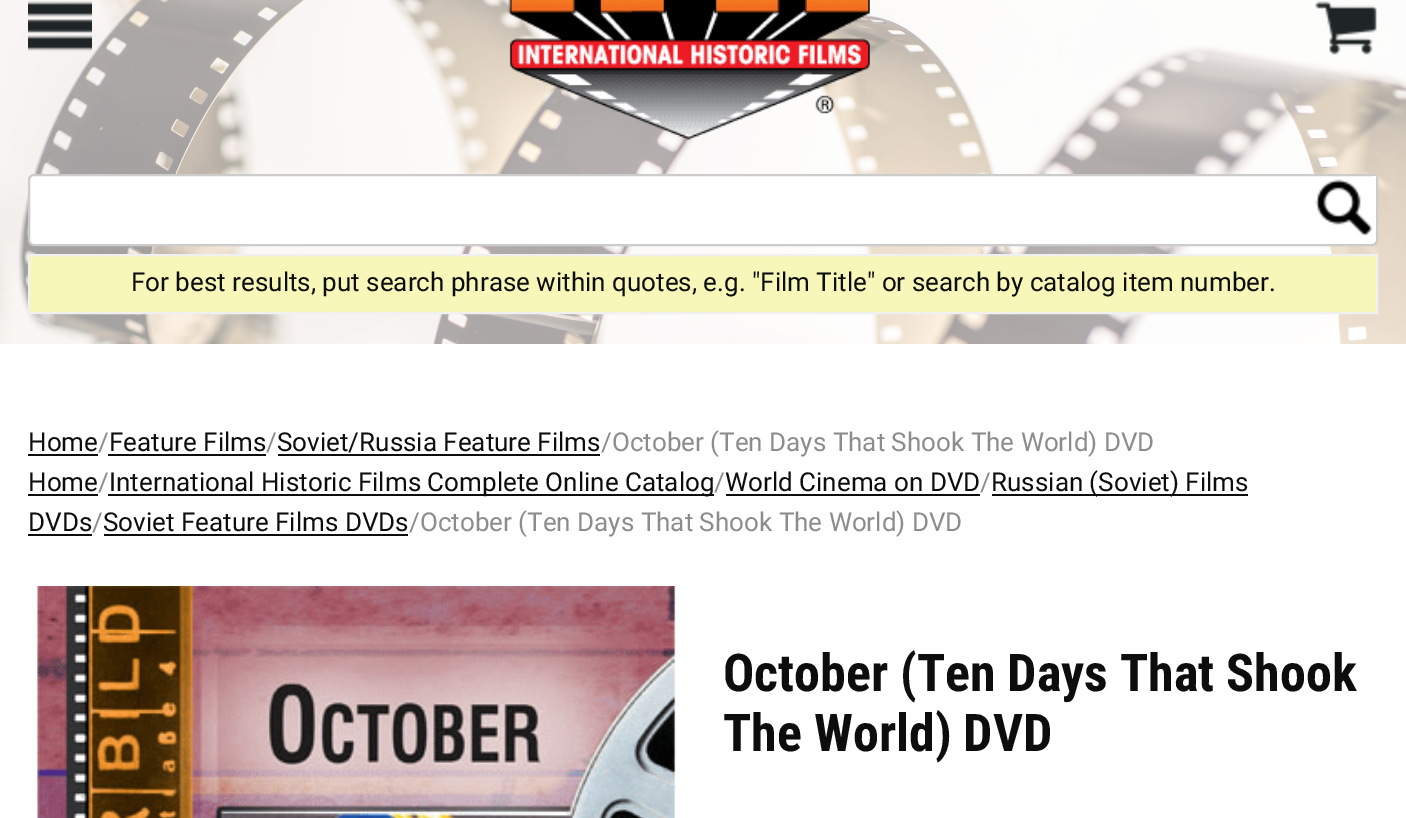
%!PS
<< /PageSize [1406 818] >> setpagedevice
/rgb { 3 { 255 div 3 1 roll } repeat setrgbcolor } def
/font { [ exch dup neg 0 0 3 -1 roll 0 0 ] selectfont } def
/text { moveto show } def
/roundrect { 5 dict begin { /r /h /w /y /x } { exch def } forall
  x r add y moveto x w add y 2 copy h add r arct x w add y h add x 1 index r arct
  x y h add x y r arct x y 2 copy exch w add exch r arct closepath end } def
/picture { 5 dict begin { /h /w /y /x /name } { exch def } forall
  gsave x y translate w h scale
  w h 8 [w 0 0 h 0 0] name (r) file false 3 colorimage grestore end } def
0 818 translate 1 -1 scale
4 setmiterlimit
255 255 255 rgb
0 0 1406 818 rectfill
(img_01.rgb) 0 0 1406 344 picture
(img_02.rgb) 28 1 64 50 picture
(img_03.rgb) 508 0 362 140 picture
(img_04.rgb) 1315 1 62 54 picture
29 175 1348 70 5 roundrect gsave fill grestore
204 204 204 rgb
2 setlinewidth
stroke
255 255 255 rgb
1373 176 3 4 rectfill
(img_05.rgb) 1315 179 58 57 picture
247 247 185 rgb
29 255 moveto 1348 0 rlineto 0 58 rlineto -1348 0 rlineto closepath gsave fill grestore
240 240 240 rgb
stroke
13 13 13 rgb
28 454 70 2 rectfill
108 454 158 2 rectfill
278 454 322 2 rectfill
28 494 70 2 rectfill
108 494 606 2 rectfill
726 494 254 2 rectfill
992 494 256 2 rectfill
28 534 64 2 rectfill
104 534 304 2 rectfill
(img_06.rgb) 37 586 639 232 picture
/Roboto-Regular 26 font
(For best results, put search phrase within quotes, e.g. "Film Title" or search by catalog item number.) 131 291 text
(Home) 28 451 text
140 140 140 rgb
(/) 98 451 text
13 13 13 rgb
(Feature Films) 109 451 text
140 140 140 rgb
(/) 266 451 text
13 13 13 rgb
(Soviet/Russia Feature Films) 277 451 text
140 140 140 rgb
(/October \(Ten Days That Shook The World\) DVD) 601 451 text
13 13 13 rgb
(Home) 28 491 text
140 140 140 rgb
(/) 98 491 text
13 13 13 rgb
(International Historic Films Complete Online Catalog) 109 491 text
140 140 140 rgb
(/) 714 491 text
13 13 13 rgb
(World Cinema on DVD) 725 491 text
140 140 140 rgb
(/) 980 491 text
13 13 13 rgb
(Russian \(Soviet\) Films) 991 491 text
(DVDs) 28 531 text
140 140 140 rgb
(/) 92 531 text
13 13 13 rgb
(Soviet Feature Films DVDs) 103 531 text
140 140 140 rgb
(/October \(Ten Days That Shook The World\) DVD) 409 531 text
/RobotoCondensed-Bold 52 font
13 13 13 rgb
(October \(Ten Days That Shook) 723 691 text
(The World\) DVD) 723 751 text
showpage
